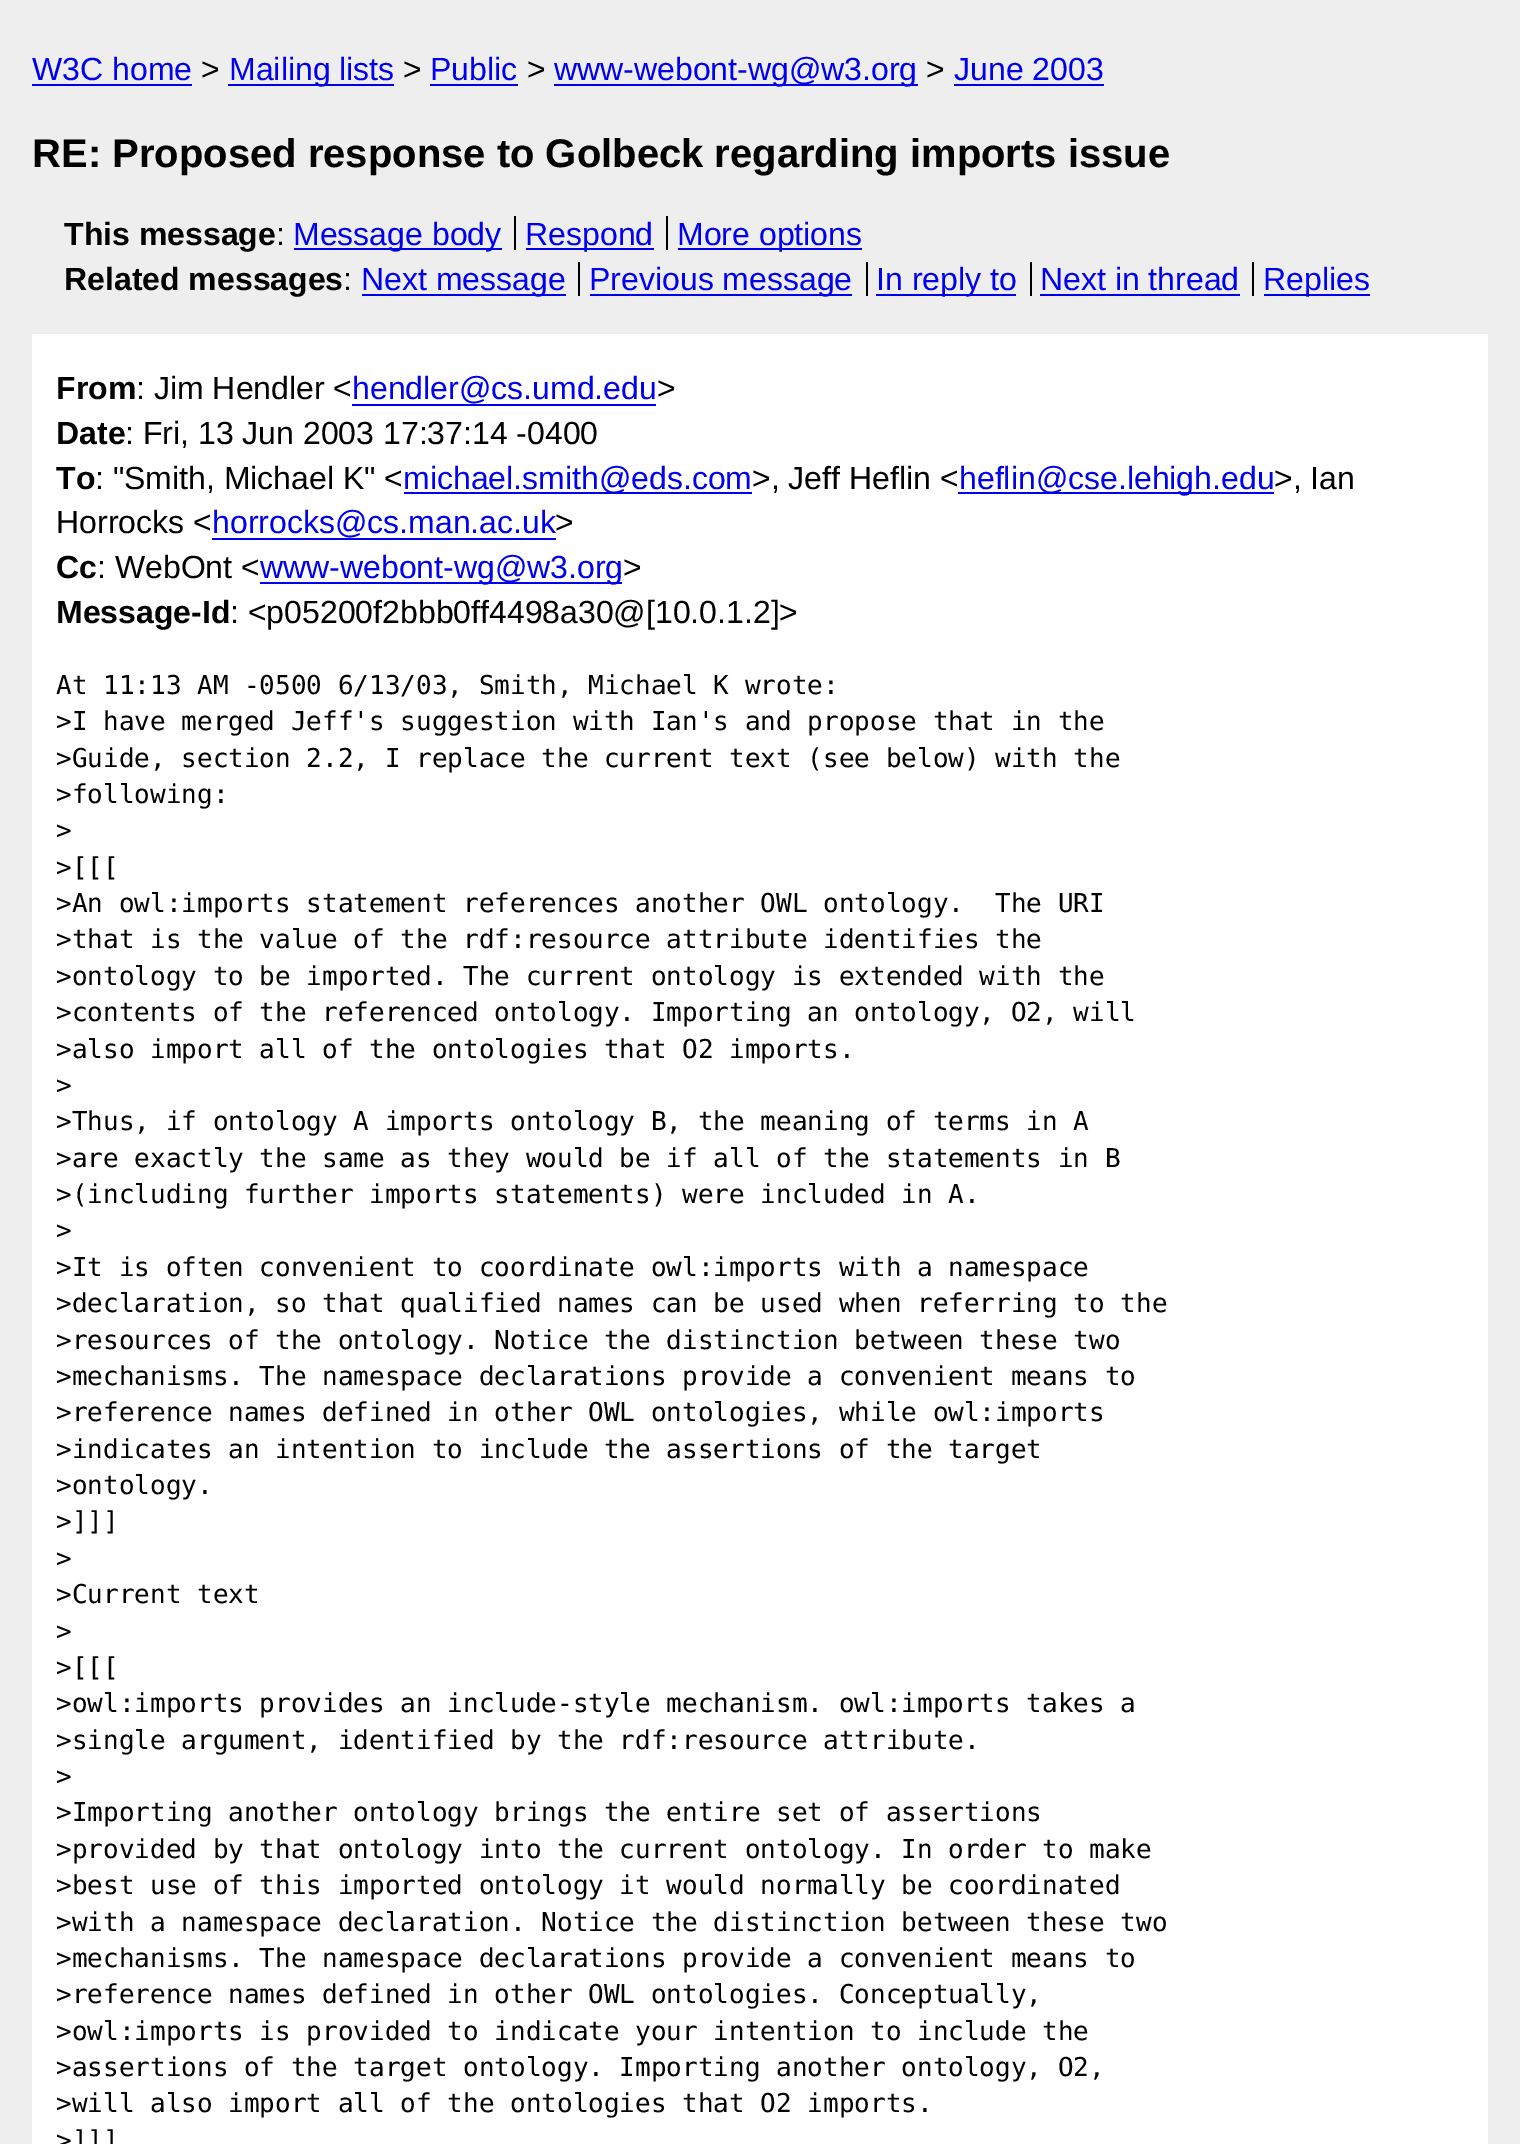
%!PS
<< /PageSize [1520 2144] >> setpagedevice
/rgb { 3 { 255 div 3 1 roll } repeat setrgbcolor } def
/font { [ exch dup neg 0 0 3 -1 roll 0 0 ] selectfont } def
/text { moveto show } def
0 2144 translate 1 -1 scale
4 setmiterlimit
238 238 238 rgb
0 0 1520 2144 rectfill
0 0 238 rgb
32 84 160 2 rectfill
228 84 166 2 rectfill
430 84 88 2 rectfill
554 84 364 2 rectfill
954 84 150 2 rectfill
294 248 208 2 rectfill
0 0 0 rgb
514 216 2 34 rectfill
0 0 238 rgb
526 248 128 2 rectfill
0 0 0 rgb
666 216 2 34 rectfill
0 0 238 rgb
678 248 184 2 rectfill
362 294 204 2 rectfill
0 0 0 rgb
578 262 2 34 rectfill
0 0 238 rgb
590 294 262 2 rectfill
0 0 0 rgb
866 262 2 34 rectfill
0 0 238 rgb
876 294 140 2 rectfill
0 0 0 rgb
1030 262 2 34 rectfill
1252 262 2 34 rectfill
0 0 238 rgb
1040 294 200 2 rectfill
1264 294 106 2 rectfill
255 255 255 rgb
32 334 1456 1810 rectfill
0 0 238 rgb
352 404 304 2 rectfill
404 492 348 2 rectfill
958 492 316 2 rectfill
212 538 344 2 rectfill
260 582 362 2 rectfill
/LiberationSans-Regular 32 font
(W3C home) 32 80 text
0 0 0 rgb
(>) 201 80 text
0 0 238 rgb
(Mailing lists) 229 80 text
0 0 0 rgb
(>) 403 80 text
0 0 238 rgb
(Public) 430 80 text
0 0 0 rgb
(>) 527 80 text
0 0 238 rgb
(www-webont-wg@w3.org) 554 80 text
0 0 0 rgb
(>) 926 80 text
0 0 238 rgb
(June 2003) 954 80 text
/LiberationSans-Bold 40 font
0 0 0 rgb
(RE: Proposed response to Golbeck regarding imports issue) 32 167 text
/LiberationSans-Bold 32 font
(This message) 64 245 text
/LiberationSans-Regular 32 font
(:) 276 245 text
0 0 238 rgb
(Message body) 293 245 text
(Respond) 525 245 text
(More options) 677 245 text
/LiberationSans-Bold 32 font
0 0 0 rgb
(Related messages) 64 290 text
/LiberationSans-Regular 32 font
(:) 343 290 text
0 0 238 rgb
(Next message) 361 290 text
(Previous message) 589 290 text
(In reply to) 876 290 text
(Next in thread) 1040 290 text
(Replies) 1263 290 text
/LiberationSans-Bold 32 font
0 0 0 rgb
(From) 56 399 text
/LiberationSans-Regular 32 font
(: Jim Hendler <) 136 399 text
0 0 238 rgb
(hendler@cs.umd.edu) 352 399 text
0 0 0 rgb
(>) 657 399 text
/LiberationSans-Bold 32 font
(Date) 56 444 text
/LiberationSans-Regular 32 font
(: Fri, 13 Jun 2003 17:37:14 -0400) 125 444 text
/LiberationSans-Bold 32 font
(To) 56 489 text
/LiberationSans-Regular 32 font
(: "Smith, Michael K" <) 95 489 text
0 0 238 rgb
(michael.smith@eds.com) 403 489 text
0 0 0 rgb
(>, Jeff Heflin <) 752 489 text
0 0 238 rgb
(heflin@cse.lehigh.edu) 959 489 text
0 0 0 rgb
(>, Ian) 1274 489 text
(Horrocks <) 56 533 text
0 0 238 rgb
(horrocks@cs.man.ac.uk) 212 533 text
0 0 0 rgb
(>) 555 533 text
/LiberationSans-Bold 32 font
(Cc) 56 578 text
/LiberationSans-Regular 32 font
(: WebOnt <) 97 578 text
0 0 238 rgb
(www-webont-wg@w3.org) 260 578 text
0 0 0 rgb
(>) 623 578 text
/LiberationSans-Bold 32 font
(Message-Id) 56 623 text
/LiberationSans-Regular 32 font
(: <p05200f2bbb0ff4498a30@[10.0.1.2]>) 230 623 text
/DejaVuSansMono-Regular 26 font
(At 11:13 AM -0500 6/13/03, Smith, Michael K wrote:) 56 694 text
(>I have merged Jeff's suggestion with Ian's and propose that in the) 56 730 text
(>Guide, section 2.2, I replace the current text \(see below\) with the) 56 767 text
(>following:) 56 803 text
(>) 56 839 text
(>[[[) 56 876 text
(>An owl:imports statement references another OWL ontology.  The URI) 56 912 text
(>that is the value of the rdf:resource attribute identifies the) 56 948 text
(>ontology to be imported. The current ontology is extended with the) 56 985 text
(>contents of the referenced ontology. Importing an ontology, O2, will) 56 1021 text
(>also import all of the ontologies that O2 imports.) 56 1058 text
(>) 56 1094 text
(>Thus, if ontology A imports ontology B, the meaning of terms in A) 56 1130 text
(>are exactly the same as they would be if all of the statements in B) 56 1167 text
(>\(including further imports statements\) were included in A.) 56 1203 text
(>) 56 1239 text
(>It is often convenient to coordinate owl:imports with a namespace) 56 1276 text
(>declaration, so that qualified names can be used when referring to the) 56 1312 text
(>resources of the ontology. Notice the distinction between these two) 56 1349 text
(>mechanisms. The namespace declarations provide a convenient means to) 56 1385 text
(>reference names defined in other OWL ontologies, while owl:imports) 56 1421 text
(>indicates an intention to include the assertions of the target) 56 1458 text
(>ontology.) 56 1494 text
(>]]]) 56 1530 text
(>) 56 1567 text
(>Current text) 56 1603 text
(>) 56 1640 text
(>[[[) 56 1676 text
(>owl:imports provides an include-style mechanism. owl:imports takes a) 56 1712 text
(>single argument, identified by the rdf:resource attribute.) 56 1749 text
(>) 56 1785 text
(>Importing another ontology brings the entire set of assertions) 56 1821 text
(>provided by that ontology into the current ontology. In order to make) 56 1858 text
(>best use of this imported ontology it would normally be coordinated) 56 1894 text
(>with a namespace declaration. Notice the distinction between these two) 56 1931 text
(>mechanisms. The namespace declarations provide a convenient means to) 56 1967 text
(>reference names defined in other OWL ontologies. Conceptually,) 56 2003 text
(>owl:imports is provided to indicate your intention to include the) 56 2040 text
(>assertions of the target ontology. Importing another ontology, O2,) 56 2076 text
(>will also import all of the ontologies that O2 imports.) 56 2112 text
(>]]]) 56 2149 text
showpage
